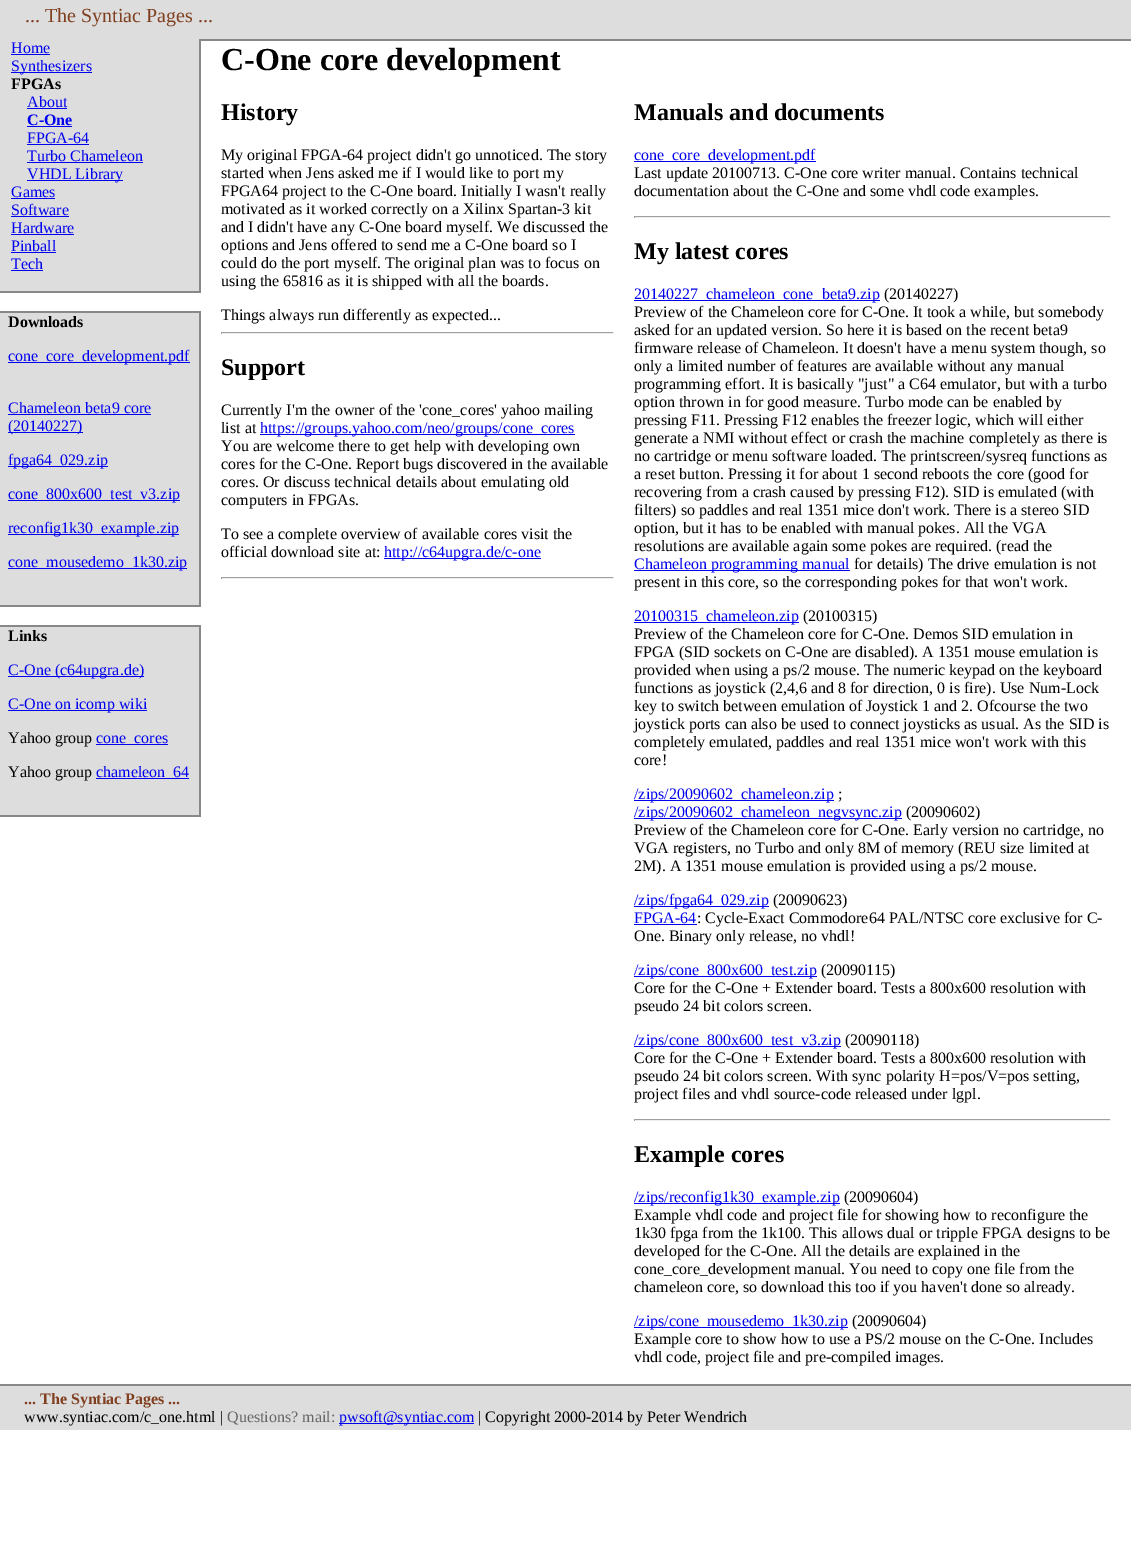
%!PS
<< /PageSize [1131 1541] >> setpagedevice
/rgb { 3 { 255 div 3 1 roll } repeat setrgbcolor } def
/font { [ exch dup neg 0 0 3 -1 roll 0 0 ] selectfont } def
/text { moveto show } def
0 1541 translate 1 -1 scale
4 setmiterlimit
255 255 255 rgb
0 0 1131 1541 rectfill
221 221 221 rgb
0 0 1131 39 rectfill
0 39 199 252 rectfill
136 136 136 rgb
199 39 2 252 rectfill
0 0 238 rgb
11 54 39 1 rectfill
11 72 81 1 rectfill
27 108 40 1 rectfill
27 126 45 1 rectfill
27 144 62 1 rectfill
27 162 116 1 rectfill
27 180 96 1 rectfill
11 198 44 1 rectfill
11 216 58 1 rectfill
11 234 63 1 rectfill
11 252 45 1 rectfill
11 270 32 1 rectfill
136 136 136 rgb
0 291 201 2 rectfill
0 311 201 2 rectfill
221 221 221 rgb
0 313 199 292 rectfill
136 136 136 rgb
199 313 2 292 rectfill
0 0 238 rgb
8 362 182 1 rectfill
8 414 143 1 rectfill
8 432 75 1 rectfill
8 466 100 1 rectfill
8 500 172 1 rectfill
8 534 171 1 rectfill
8 568 179 1 rectfill
136 136 136 rgb
0 605 201 2 rectfill
0 625 201 2 rectfill
221 221 221 rgb
0 627 199 188 rectfill
136 136 136 rgb
199 627 2 188 rectfill
0 0 238 rgb
8 676 136 1 rectfill
8 710 139 1 rectfill
96 744 72 1 rectfill
96 778 93 1 rectfill
136 136 136 rgb
0 815 201 2 rectfill
201 39 930 2 rectfill
159 159 159 rgb
221 332 393 1 rectfill
238 238 238 rgb
613 332 1 2 rectfill
221 333 393 1 rectfill
159 159 159 rgb
221 332 1 2 rectfill
0 0 238 rgb
260 434 315 1 rectfill
384 558 157 1 rectfill
159 159 159 rgb
221 577 393 1 rectfill
238 238 238 rgb
613 577 1 2 rectfill
221 578 393 1 rectfill
159 159 159 rgb
221 577 1 2 rectfill
0 0 238 rgb
634 161 182 1 rectfill
159 159 159 rgb
634 216 477 1 rectfill
238 238 238 rgb
1110 216 1 2 rectfill
634 217 477 1 rectfill
159 159 159 rgb
634 216 1 2 rectfill
0 0 238 rgb
634 300 246 1 rectfill
634 570 216 1 rectfill
634 622 165 1 rectfill
634 800 200 1 rectfill
634 818 268 1 rectfill
634 906 135 1 rectfill
634 924 63 1 rectfill
634 976 183 1 rectfill
634 1046 207 1 rectfill
159 159 159 rgb
634 1119 477 1 rectfill
238 238 238 rgb
1110 1119 1 2 rectfill
634 1120 477 1 rectfill
159 159 159 rgb
634 1119 1 2 rectfill
0 0 238 rgb
634 1203 206 1 rectfill
634 1327 214 1 rectfill
136 136 136 rgb
0 1384 1131 2 rectfill
221 221 221 rgb
0 1386 1131 4 rectfill
0 1390 1131 40 rectfill
0 0 238 rgb
339 1423 135 1 rectfill
/LiberationSerif-Regular 20 font
128 64 32 rgb
(... The Syntiac Pages ...) 25 22 text
/LiberationSerif-Regular 16 font
0 0 238 rgb
(Home) 11 53 text
(Synthesizers) 11 71 text
/LiberationSerif-Bold 16 font
0 0 0 rgb
(FPGAs) 11 89 text
/LiberationSerif-Regular 16 font
0 0 238 rgb
(About) 27 107 text
/LiberationSerif-Bold 16 font
(C-One) 27 125 text
/LiberationSerif-Regular 16 font
(FPGA-64) 27 143 text
(Turbo Chameleon) 27 161 text
(VHDL Library) 27 179 text
(Games) 11 197 text
(Software) 11 215 text
(Hardware) 11 233 text
(Pinball) 11 251 text
(Tech) 11 269 text
/LiberationSerif-Bold 16 font
0 0 0 rgb
(Downloads) 8 327 text
/LiberationSerif-Regular 16 font
0 0 238 rgb
(cone_core_development.pdf) 8 361 text
(Chameleon beta9 core) 8 413 text
(\(20140227\)) 8 431 text
(fpga64_029.zip) 8 465 text
(cone_800x600_test_v3.zip) 8 499 text
(reconfig1k30_example.zip) 8 533 text
(cone_mousedemo_1k30.zip) 8 567 text
/LiberationSerif-Bold 16 font
0 0 0 rgb
(Links) 8 641 text
/LiberationSerif-Regular 16 font
0 0 238 rgb
(C-One \(c64upgra.de\)) 8 675 text
(C-One on icomp wiki) 8 709 text
0 0 0 rgb
(Yahoo group) 8 743 text
0 0 238 rgb
(cone_cores) 96 743 text
0 0 0 rgb
(Yahoo group) 8 777 text
0 0 238 rgb
(chameleon_64) 96 777 text
/LiberationSerif-Bold 32 font
0 0 0 rgb
(C-One core development) 221 70 text
/LiberationSerif-Bold 24 font
(History) 221 120 text
/LiberationSerif-Regular 16 font
(My original FPGA-64 project didn't go unnoticed. The story) 221 160 text
(started when Jens asked me if I would like to port my) 221 178 text
(FPGA64 project to the C-One board. Initially I wasn't really) 221 196 text
(motivated as it worked correctly on a Xilinx Spartan-3 kit) 221 214 text
(and I didn't have any C-One board myself. We discussed the) 221 232 text
(options and Jens offered to send me a C-One board so I) 221 250 text
(could do the port myself. The original plan was to focus on) 221 268 text
(using the 65816 as it is shipped with all the boards.) 221 286 text
(Things always run differently as expected...) 221 320 text
/LiberationSerif-Bold 24 font
(Support) 221 375 text
/LiberationSerif-Regular 16 font
(Currently I'm the owner of the 'cone_cores' yahoo mailing) 221 415 text
(list at) 221 433 text
0 0 238 rgb
(https://groups.yahoo.com/neo/groups/cone_cores) 260 433 text
0 0 0 rgb
(You are welcome there to get help with developing own) 221 451 text
(cores for the C-One. Report bugs discovered in the available) 221 469 text
(cores. Or discuss technical details about emulating old) 221 487 text
(computers in FPGAs.) 221 505 text
(To see a complete overview of available cores visit the) 221 539 text
(official download site at:) 221 557 text
0 0 238 rgb
(http://c64upgra.de/c-one) 384 557 text
/LiberationSerif-Bold 24 font
0 0 0 rgb
(Manuals and documents) 634 120 text
/LiberationSerif-Regular 16 font
0 0 238 rgb
(cone_core_development.pdf) 634 160 text
0 0 0 rgb
(Last update 20100713. C-One core writer manual. Contains technical) 634 178 text
(documentation about the C-One and some vhdl code examples.) 634 196 text
/LiberationSerif-Bold 24 font
(My latest cores) 634 259 text
/LiberationSerif-Regular 16 font
0 0 238 rgb
(20140227_chameleon_cone_beta9.zip) 634 299 text
0 0 0 rgb
(\(20140227\)) 884 299 text
(Preview of the Chameleon core for C-One. It took a while, but somebody) 634 317 text
(asked for an updated version. So here it is based on the recent beta9) 634 335 text
(firmware release of Chameleon. It doesn't have a menu system though, so) 634 353 text
(only a limited number of features are available without any manual) 634 371 text
(programming effort. It is basically "just" a C64 emulator, but with a turbo) 634 389 text
(option thrown in for good measure. Turbo mode can be enabled by) 634 407 text
(pressing F11. Pressing F12 enables the freezer logic, which will either) 634 425 text
(generate a NMI without effect or crash the machine completely as there is) 634 443 text
(no cartridge or menu software loaded. The printscreen/sysreq functions as) 634 461 text
(a reset button. Pressing it for about 1 second reboots the core \(good for) 634 479 text
(recovering from a crash caused by pressing F12\). SID is emulated \(with) 634 497 text
(filters\) so paddles and real 1351 mice don't work. There is a stereo SID) 634 515 text
(option, but it has to be enabled with manual pokes. All the VGA) 634 533 text
(resolutions are available again some pokes are required. \(read the) 634 551 text
0 0 238 rgb
(Chameleon programming manual) 634 569 text
0 0 0 rgb
(for details\) The drive emulation is not) 854 569 text
(present in this core, so the corresponding pokes for that won't work.) 634 587 text
0 0 238 rgb
(20100315_chameleon.zip) 634 621 text
0 0 0 rgb
(\(20100315\)) 803 621 text
(Preview of the Chameleon core for C-One. Demos SID emulation in) 634 639 text
(FPGA \(SID sockets on C-One are disabled\). A 1351 mouse emulation is) 634 657 text
(provided when using a ps/2 mouse. The numeric keypad on the keyboard) 634 675 text
(functions as joystick \(2,4,6 and 8 for direction, 0 is fire\). Use Num-Lock) 634 693 text
(key to switch between emulation of Joystick 1 and 2. Ofcourse the two) 634 711 text
(joystick ports can also be used to connect joysticks as usual. As the SID is) 634 729 text
(completely emulated, paddles and real 1351 mice won't work with this) 634 747 text
(core!) 634 765 text
0 0 238 rgb
(/zips/20090602_chameleon.zip) 634 799 text
0 0 0 rgb
(;) 838 799 text
0 0 238 rgb
(/zips/20090602_chameleon_negvsync.zip) 634 817 text
0 0 0 rgb
(\(20090602\)) 906 817 text
(Preview of the Chameleon core for C-One. Early version no cartridge, no) 634 835 text
(VGA registers, no Turbo and only 8M of memory \(REU size limited at) 634 853 text
(2M\). A 1351 mouse emulation is provided using a ps/2 mouse.) 634 871 text
0 0 238 rgb
(/zips/fpga64_029.zip) 634 905 text
0 0 0 rgb
(\(20090623\)) 773 905 text
0 0 238 rgb
(FPGA-64) 634 923 text
0 0 0 rgb
(: Cycle-Exact Commodore64 PAL/NTSC core exclusive for C-) 697 923 text
(One. Binary only release, no vhdl!) 634 941 text
0 0 238 rgb
(/zips/cone_800x600_test.zip) 634 975 text
0 0 0 rgb
(\(20090115\)) 821 975 text
(Core for the C-One + Extender board. Tests a 800x600 resolution with) 634 993 text
(pseudo 24 bit colors screen.) 634 1011 text
0 0 238 rgb
(/zips/cone_800x600_test_v3.zip) 634 1045 text
0 0 0 rgb
(\(20090118\)) 845 1045 text
(Core for the C-One + Extender board. Tests a 800x600 resolution with) 634 1063 text
(pseudo 24 bit colors screen. With sync polarity H=pos/V=pos setting,) 634 1081 text
(project files and vhdl source-code released under lgpl.) 634 1099 text
/LiberationSerif-Bold 24 font
(Example cores) 634 1162 text
/LiberationSerif-Regular 16 font
0 0 238 rgb
(/zips/reconfig1k30_example.zip) 634 1202 text
0 0 0 rgb
(\(20090604\)) 844 1202 text
(Example vhdl code and project file for showing how to reconfigure the) 634 1220 text
(1k30 fpga from the 1k100. This allows dual or tripple FPGA designs to be) 634 1238 text
(developed for the C-One. All the details are explained in the) 634 1256 text
(cone_core_development manual. You need to copy one file from the) 634 1274 text
(chameleon core, so download this too if you haven't done so already.) 634 1292 text
0 0 238 rgb
(/zips/cone_mousedemo_1k30.zip) 634 1326 text
0 0 0 rgb
(\(20090604\)) 852 1326 text
(Example core to show how to use a PS/2 mouse on the C-One. Includes) 634 1344 text
(vhdl code, project file and pre-compiled images.) 634 1362 text
/LiberationSerif-Bold 16 font
128 64 32 rgb
(... The Syntiac Pages ...) 24 1404 text
/LiberationSerif-Regular 16 font
0 0 0 rgb
(www.syntiac.com/c_one.html |) 24 1422 text
102 102 102 rgb
(Questions? mail:) 227 1422 text
0 0 238 rgb
(pwsoft@syntiac.com) 339 1422 text
0 0 0 rgb
(| Copyright 2000-2014 by Peter Wendrich) 478 1422 text
showpage
